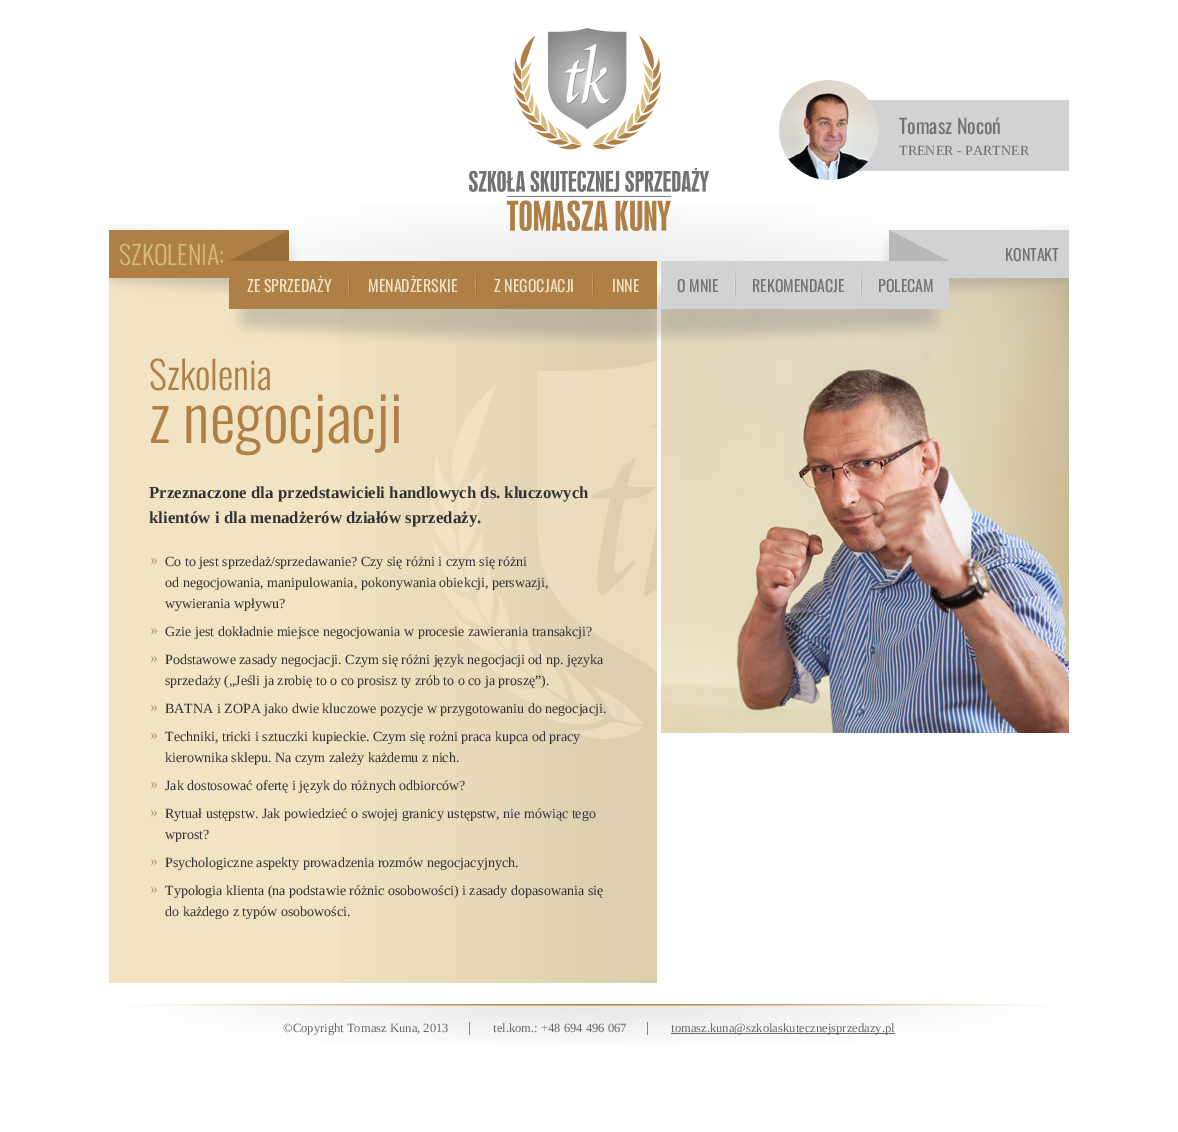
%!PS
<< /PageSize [1178 1132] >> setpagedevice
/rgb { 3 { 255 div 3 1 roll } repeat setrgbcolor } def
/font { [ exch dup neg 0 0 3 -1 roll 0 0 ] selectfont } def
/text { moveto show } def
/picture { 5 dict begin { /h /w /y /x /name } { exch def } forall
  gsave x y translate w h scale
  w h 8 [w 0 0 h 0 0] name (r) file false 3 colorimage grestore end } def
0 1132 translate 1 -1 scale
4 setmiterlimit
255 255 255 rgb
0 0 1178 1132 rectfill
242 228 194 rgb
109 278 231 705 rectfill
(img_08.rgb) 340 309 317 674 picture
(img_11.rgb) 661 278 408 455 picture
(img_03.rgb) 109 203 960 141 picture
(img_01.rgb) 469 28 240 203 picture
208 210 211 rgb
857 100 212 71 rectfill
(img_02.rgb) 779 80 100 100 picture
175 127 72 rgb
109 230 180 48 rectfill
(img_04.rgb) 229 230 60 31 picture
208 210 211 rgb
889 230 180 48 rectfill
(img_05.rgb) 889 230 60 31 picture
175 127 72 rgb
229 261 428 48 rectfill
(img_06.rgb) 348 270 2 31 picture
(img_06.rgb) 475 270 2 31 picture
(img_06.rgb) 592 270 2 31 picture
208 210 211 rgb
661 261 288 48 rectfill
(img_07.rgb) 734 270 2 31 picture
(img_07.rgb) 860 270 2 31 picture
(img_09.rgb) 430 360 227 379 picture
(img_10.rgb) 151 558 6 7 picture
(img_10.rgb) 151 628 6 7 picture
(img_10.rgb) 151 656 6 7 picture
(img_10.rgb) 151 705 6 7 picture
(img_10.rgb) 151 733 6 7 picture
(img_10.rgb) 151 782 6 7 picture
(img_10.rgb) 151 810 6 7 picture
(img_10.rgb) 151 859 6 7 picture
(img_10.rgb) 151 887 6 7 picture
(img_12.rgb) 125 1004 928 40 picture
175 127 72 rgb
469 1022 1 13 rectfill
647 1022 1 13 rectfill
102 102 102 rgb
671 1033 224 1 rectfill
/Oswald-Regular 20 font
112 113 115 rgb
(Tomasz Nocoń) 899 134 text
/LiberationSerif-Regular 14 font
(TRENER - PARTNER) 899 155 text
/Oswald-Light 26 font
214 188 128 rgb
(SZKOLENIA:) 119 265 text
/Oswald-Regular 16 font
112 113 115 rgb
(KONTAKT) 1005 261 text
242 228 194 rgb
(ZE SPRZEDAŻY) 247 292 text
(MENADŻERSKIE) 368 292 text
(Z NEGOCJACJI) 494 292 text
(INNE) 612 292 text
112 113 115 rgb
(O MNIE) 677 292 text
(REKOMENDACJE) 752 292 text
(POLECAM) 878 292 text
/Oswald-Light 38.5 font
175 127 72 rgb
(Szkolenia) 149 390 text
/Oswald-Light 64 font
(z negocjacji) 149 443 text
/LiberationSerif-Bold 16.8 font
51 51 51 rgb
(Przeznaczone dla przedstawicieli handlowych ds. kluczowych) 149 498 text
(klientów i dla menadżerów działów sprzedaży.) 149 523 text
/LiberationSerif-Regular 14 font
(Co to jest sprzedaż/sprzedawanie? Czy się różni i czym się różni) 165 566 text
(od negocjowania, manipulowania, pokonywania obiekcji, perswazji,) 165 587 text
(wywierania wpływu?) 165 608 text
(Gzie jest dokładnie miejsce negocjowania w procesie zawierania transakcji?) 165 636 text
(Podstawowe zasady negocjacji. Czym się różni język negocjacji od np. języka) 165 664 text
(sprzedaży \(„Jeśli ja zrobię to o co prosisz ty zrób to o co ja proszę”\).) 165 685 text
(BATNA i ZOPA jako dwie kluczowe pozycje w przygotowaniu do negocjacji.) 165 713 text
(Techniki, tricki i sztuczki kupieckie. Czym się rożni praca kupca od pracy) 165 741 text
(kierownika sklepu. Na czym zależy każdemu z nich.) 165 762 text
(Jak dostosować ofertę i język do różnych odbiorców?) 165 790 text
(Rytuał ustępstw. Jak powiedzieć o swojej granicy ustępstw, nie mówiąc tego) 165 818 text
(wprost?) 165 839 text
(Psychologiczne aspekty prowadzenia rozmów negocjacyjnych.) 165 867 text
(Typologia klienta \(na podstawie różnic osobowości\) i zasady dopasowania się) 165 895 text
(do każdego z typów osobowości.) 165 916 text
/LiberationSerif-Regular 12.6 font
102 102 102 rgb
(©Copyright Tomasz Kuna, 2013) 283 1032 text
(tel.kom.: +48 694 496 067) 493 1032 text
(tomasz.kuna@szkolaskutecznejsprzedazy.pl) 671 1032 text
showpage
